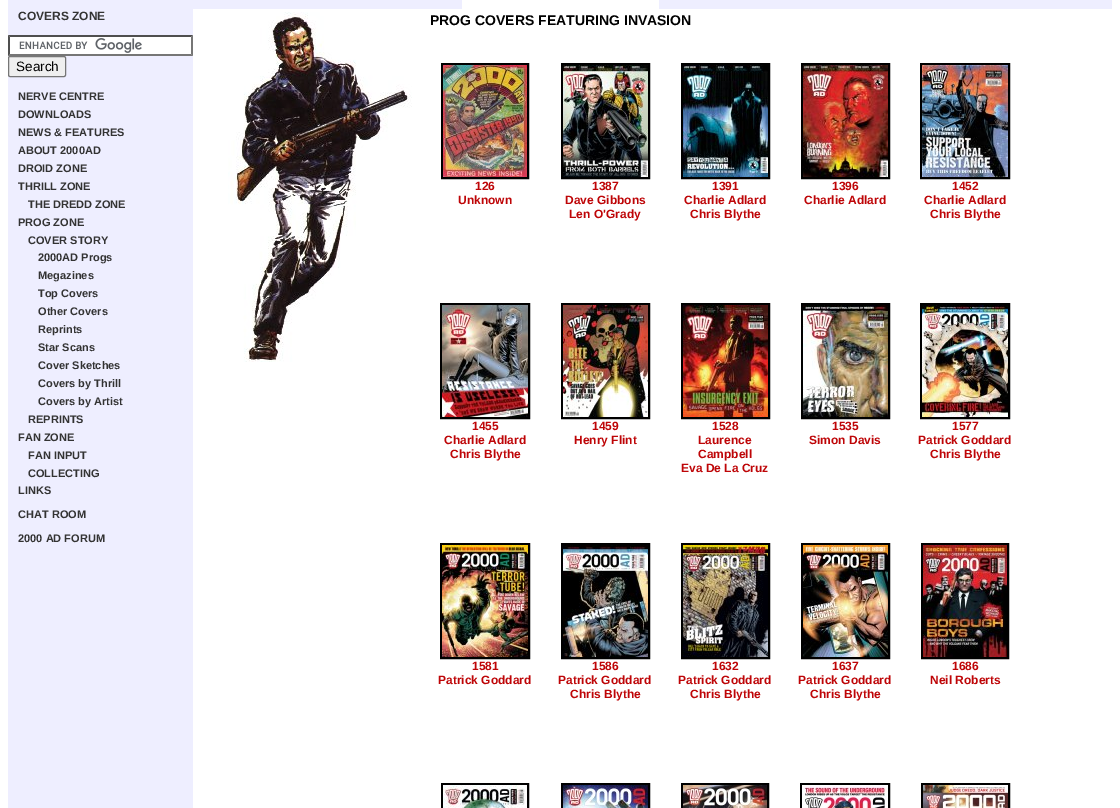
%!PS
<< /PageSize [1120 808] >> setpagedevice
/rgb { 3 { 255 div 3 1 roll } repeat setrgbcolor } def
/font { [ exch dup neg 0 0 3 -1 roll 0 0 ] selectfont } def
/text { moveto show } def
/roundrect { 5 dict begin { /r /h /w /y /x } { exch def } forall
  x r add y moveto x w add y 2 copy h add r arct x w add y h add x 1 index r arct
  x y h add x y r arct x y 2 copy exch w add exch r arct closepath end } def
/picture { 5 dict begin { /h /w /y /x /name } { exch def } forall
  gsave x y translate w h scale
  w h 8 [w 0 0 h 0 0] name (r) file false 3 colorimage grestore end } def
0 808 translate 1 -1 scale
4 setmiterlimit
255 255 255 rgb
0 0 1120 808 rectfill
238 238 255 rgb
8 0 1104 9 rectfill
255 255 255 rgb
462 0 197 9 rectfill
238 238 255 rgb
8 9 185 799 rectfill
255 255 255 rgb
8 35 185 21 rectfill
(img_01.rgb) 19 38 123 15 picture
79 79 79 rgb
8 35 moveto 185 0 rlineto -2 2 rlineto -181 0 rlineto closepath fill
118 118 118 rgb
193 35 moveto 0 21 rlineto -2 -2 rlineto 0 -17 rlineto closepath fill
193 56 moveto -185 0 rlineto 2 -2 rlineto 181 0 rlineto closepath fill
79 79 79 rgb
8 56 moveto 0 -21 rlineto 2 2 rlineto 0 17 rlineto closepath fill
239 239 239 rgb
8.5 56.5 57 20 1.5 roundrect gsave fill grestore
118 118 118 rgb
stroke
(img_02.rgb) 228 12 184 350 picture
0 0 0 rgb
2 setlinewidth
442 64 86 114 rectstroke
(img_03.rgb) 443 65 84 112 picture
562 64 87 114 rectstroke
(img_04.rgb) 563 65 85 112 picture
682 64 87 114 rectstroke
(img_05.rgb) 683 65 85 112 picture
802 64 87 114 rectstroke
(img_06.rgb) 803 65 85 112 picture
921 64 88 114 rectstroke
(img_07.rgb) 922 65 86 112 picture
441 304 88 114 rectstroke
(img_08.rgb) 442 305 86 112 picture
562 304 87 114 rectstroke
(img_09.rgb) 563 305 85 112 picture
682 304 87 114 rectstroke
(img_10.rgb) 683 305 85 112 picture
802 304 87 114 rectstroke
(img_11.rgb) 803 305 85 112 picture
921 304 88 114 rectstroke
(img_12.rgb) 922 305 86 112 picture
441 544 88 114 rectstroke
(img_13.rgb) 442 545 86 112 picture
562 544 87 114 rectstroke
(img_14.rgb) 563 545 85 112 picture
682 544 87 114 rectstroke
(img_15.rgb) 683 545 85 112 picture
802 544 87 114 rectstroke
(img_16.rgb) 803 545 85 112 picture
922 544 86 114 rectstroke
(img_17.rgb) 923 545 84 112 picture
442 784 86 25 rectstroke
(img_18.rgb) 443 785 84 23 picture
562 784 87 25 rectstroke
(img_19.rgb) 563 785 85 23 picture
682 784 86 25 rectstroke
(img_20.rgb) 683 785 84 23 picture
801 784 88 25 rectstroke
(img_21.rgb) 802 785 86 23 picture
922 784 87 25 rectstroke
(img_22.rgb) 923 785 85 23 picture
/LiberationSans-Bold 12 font
51 51 51 rgb
(COVERS ZONE) 18 20 text
/LiberationSans-Regular 13.5 font
0 0 0 rgb
(Search) 16 71 text
/LiberationSans-Bold 11 font
51 51 51 rgb
(NERVE CENTRE) 18 100 text
(DOWNLOADS) 18 118 text
(NEWS & FEATURES) 18 136 text
(ABOUT 2000AD) 18 154 text
(DROID ZONE) 18 172 text
(THRILL ZONE) 18 190 text
(THE DREDD ZONE) 28 208 text
(PROG ZONE) 18 226 text
(COVER STORY) 28 244 text
(2000AD Progs) 38 261 text
(Megazines) 38 279 text
(Top Covers) 38 297 text
(Other Covers) 38 315 text
(Reprints) 38 333 text
(Star Scans) 38 351 text
(Cover Sketches) 38 369 text
(Covers by Thrill) 38 387 text
(Covers by Artist) 38 405 text
(REPRINTS) 28 423 text
(FAN ZONE) 18 441 text
(FAN INPUT) 28 459 text
(COLLECTING) 28 477 text
(LINKS) 18 494 text
(CHAT ROOM) 18 518 text
(2000 AD FORUM) 18 542 text
/LiberationSans-Bold 14 font
0 0 0 rgb
(PROG COVERS FEATURING INVASION) 430 25 text
/LiberationSans-Bold 12 font
190 5 7 rgb
(126) 475 190 text
(Unknown) 458 204 text
(1387) 592 190 text
(Dave Gibbons) 565 204 text
(Len O'Grady) 569 218 text
(1391) 712 190 text
(Charlie Adlard) 684 204 text
(Chris Blythe) 690 218 text
(1396) 832 190 text
(Charlie Adlard) 804 204 text
(1452) 952 190 text
(Charlie Adlard) 924 204 text
(Chris Blythe) 930 218 text
(1455) 472 430 text
(Charlie Adlard) 444 444 text
(Chris Blythe) 450 458 text
(1459) 592 430 text
(Henry Flint) 574 444 text
(1528) 712 430 text
(Laurence) 698 444 text
(Campbell) 698 458 text
(Eva De La Cruz) 681 472 text
(1535) 832 430 text
(Simon Davis) 809 444 text
(1577) 952 430 text
(Patrick Goddard) 918 444 text
(Chris Blythe) 930 458 text
(1581) 472 670 text
(Patrick Goddard) 438 684 text
(1586) 592 670 text
(Patrick Goddard) 558 684 text
(Chris Blythe) 570 698 text
(1632) 712 670 text
(Patrick Goddard) 678 684 text
(Chris Blythe) 690 698 text
(1637) 832 670 text
(Patrick Goddard) 798 684 text
(Chris Blythe) 810 698 text
(1686) 952 670 text
(Neil Roberts) 930 684 text
showpage
